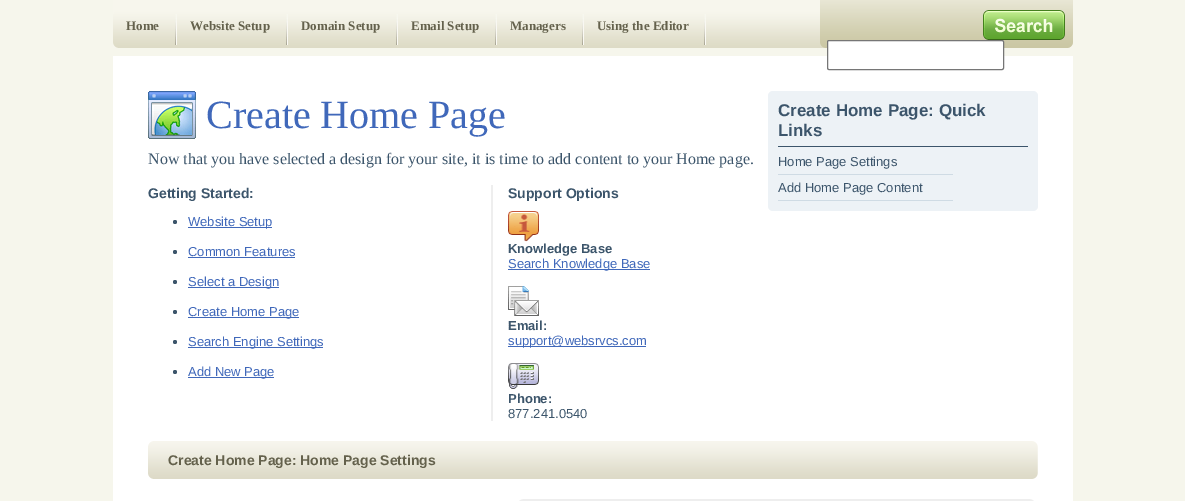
%!PS
<< /PageSize [1185 501] >> setpagedevice
/rgb { 3 { 255 div 3 1 roll } repeat setrgbcolor } def
/font { [ exch dup neg 0 0 3 -1 roll 0 0 ] selectfont } def
/text { moveto show } def
/circle { newpath 0 360 arc closepath } def
/roundrect { 5 dict begin { /r /h /w /y /x } { exch def } forall
  x r add y moveto x w add y 2 copy h add r arct x w add y h add x 1 index r arct
  x y h add x y r arct x y 2 copy exch w add exch r arct closepath end } def
/picture { 5 dict begin { /h /w /y /x /name } { exch def } forall
  gsave x y translate w h scale
  w h 8 [w 0 0 h 0 0] name (r) file false 3 colorimage grestore end } def
0 501 translate 1 -1 scale
4 setmiterlimit
246 246 236 rgb
0 0 1185 501 rectfill
(img_01.rgb) 113 0 960 48 picture
(img_02.rgb) 175 14 2 31 picture
(img_02.rgb) 286 14 2 31 picture
(img_02.rgb) 396 14 2 31 picture
(img_02.rgb) 495 14 2 31 picture
(img_02.rgb) 582 14 2 31 picture
(img_02.rgb) 704 14 2 31 picture
(img_03.rgb) 983 10 82 30 picture
255 255 255 rgb
113 56 960 445 rectfill
827.5 40.5 176 29 1.5 roundrect gsave fill grestore
118 118 118 rgb
stroke
(img_04.rgb) 148 91 48 48 picture
237 242 246 rgb
768 91 270 120 5 roundrect fill
60 85 107 rgb
778 146 250 1 rectfill
207 219 228 rgb
778 174 175 1 rectfill
778 200 175 1 rectfill
60 85 107 rgb
175 222 2 circle fill
64 104 186 rgb
188 227 84 1 rectfill
60 85 107 rgb
175 252 2 circle fill
64 104 186 rgb
188 257 107 1 rectfill
60 85 107 rgb
175 282 2 circle fill
64 104 186 rgb
188 287 91 1 rectfill
60 85 107 rgb
175 312 2 circle fill
64 104 186 rgb
188 317 111 1 rectfill
60 85 107 rgb
175 342 2 circle fill
64 104 186 rgb
188 347 135 1 rectfill
60 85 107 rgb
175 372 2 circle fill
64 104 186 rgb
188 377 86 1 rectfill
238 238 238 rgb
491 185 2 236 rectfill
(img_05.rgb) 508 211 31 31 picture
64 104 186 rgb
508 269 142 1 rectfill
(img_06.rgb) 508 286 31 30 picture
508 346 138 1 rectfill
(img_07.rgb) 508 363 31 26 picture
(img_08.rgb) 148 441 890 38 picture
238 238 238 rgb
10 setlinewidth
520 504 513 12 5 roundrect stroke
/LiberationSerif-Bold 13 font
100 97 76 rgb
(Home) 126 30 text
(Website Setup) 190 30 text
(Domain Setup) 301 30 text
(Email Setup) 411 30 text
(Managers) 510 30 text
(Using the Editor) 597 30 text
/LiberationSerif-Regular 40 font
64 104 186 rgb
(Create Home Page) 206 128 text
/LiberationSans-Bold 17 font
60 85 107 rgb
(Create Home Page: Quick) 778 116 text
(Links) 778 136 text
/LiberationSans-Regular 13 font
(Home Page Settings) 778 166 text
(Add Home Page Content) 778 192 text
/LiberationSerif-Regular 16 font
(Now that you have selected a design for your site, it is time to add content to your Home page.) 148 164 text
/LiberationSans-Bold 14 font
(Getting Started:) 148 198 text
/LiberationSans-Regular 13 font
64 104 186 rgb
(Website Setup) 188 226 text
(Common Features) 188 256 text
(Select a Design) 188 286 text
(Create Home Page) 188 316 text
(Search Engine Settings) 188 346 text
(Add New Page) 188 376 text
/LiberationSans-Bold 14 font
60 85 107 rgb
(Support Options) 508 198 text
/LiberationSans-Bold 13 font
(Knowledge Base) 508 253 text
/LiberationSans-Regular 13 font
64 104 186 rgb
(Search Knowledge Base) 508 268 text
/LiberationSans-Bold 13 font
60 85 107 rgb
(Email:) 508 330 text
/LiberationSans-Regular 13 font
64 104 186 rgb
(support@websrvcs.com) 508 345 text
/LiberationSans-Bold 13 font
60 85 107 rgb
(Phone:) 508 403 text
/LiberationSans-Regular 13 font
(877.241.0540) 508 418 text
/LiberationSans-Bold 14 font
100 97 76 rgb
(Create Home Page: Home Page Settings) 168 465 text
showpage
